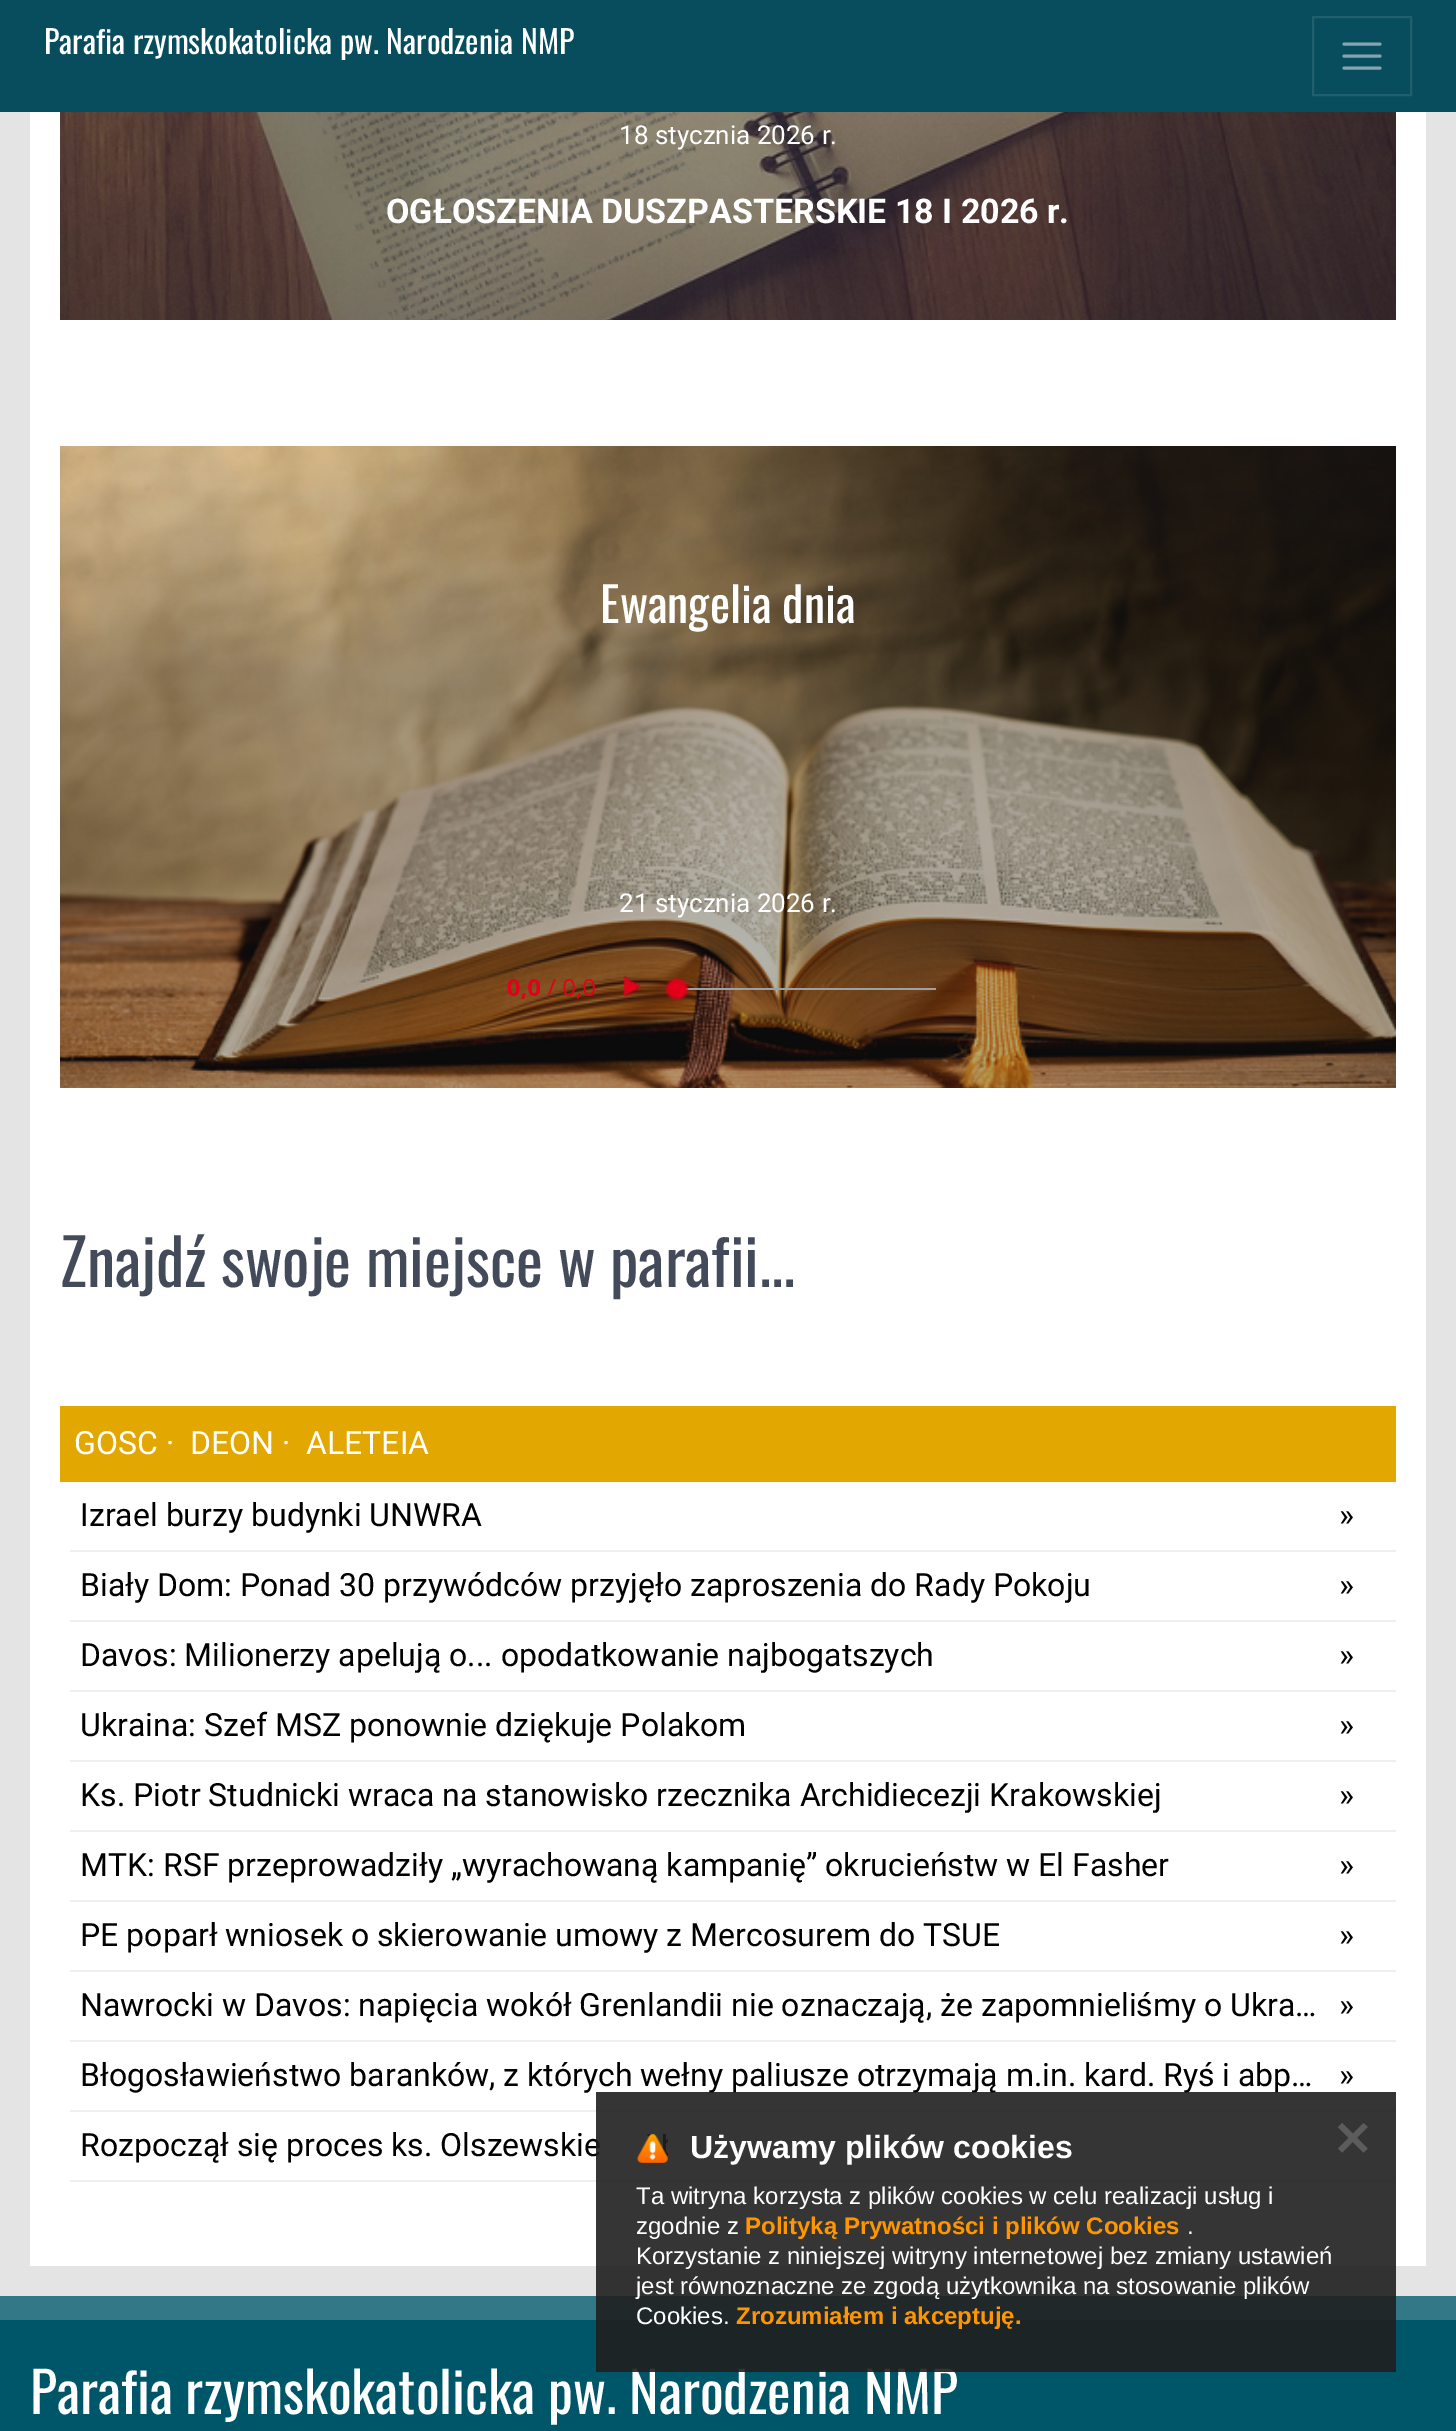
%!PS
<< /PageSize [1456 2431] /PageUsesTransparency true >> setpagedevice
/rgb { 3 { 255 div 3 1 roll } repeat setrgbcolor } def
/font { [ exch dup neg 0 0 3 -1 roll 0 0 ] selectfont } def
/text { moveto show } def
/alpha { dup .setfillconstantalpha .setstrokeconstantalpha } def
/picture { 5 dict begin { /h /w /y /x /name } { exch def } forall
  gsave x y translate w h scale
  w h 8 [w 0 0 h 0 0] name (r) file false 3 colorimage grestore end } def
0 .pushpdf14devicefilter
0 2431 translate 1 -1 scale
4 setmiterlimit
228 228 228 rgb
0 0 1456 2431 rectfill
7 77 93 rgb
0 0 1456 112 rectfill
131 166 174 rgb
3 setlinewidth
1 setlinecap
1344 44 moveto 36 0 rlineto 1344 56 moveto 36 0 rlineto 1344 68 moveto 36 0 rlineto stroke
32 95 109 rgb
2 setlinewidth
0 setlinecap
1313 17 98 78 rectstroke
255 255 255 rgb
30 112 1396 2154 rectfill
(img_01.rgb) 60 112 1336 208 picture
(img_02.rgb) 60 446 1336 642 picture
(img_03.rgb) 507 975 429 26 picture
226 167 0 rgb
60 1406 1336 76 rectfill
239 239 239 rgb
70 1550 1326 2 rectfill
70 1620 1326 2 rectfill
70 1690 1326 2 rectfill
70 1760 1326 2 rectfill
70 1830 1326 2 rectfill
70 1900 1326 2 rectfill
70 1970 1326 2 rectfill
70 2040 1326 2 rectfill
70 2110 1326 2 rectfill
70 2180 1326 2 rectfill
0 86 105 rgb
0 2320 1456 111 rectfill
51 120 135 rgb
0 2296 1456 24 rectfill
/Oswald-Regular 32 font
255 255 255 rgb
(Parafia rzymskokatolicka pw. Narodzenia NMP) 44 54 text
/Roboto-Regular 26 font
(18 stycznia 2026 r.) 619 144 text
/Roboto-Bold 34 font
(OGŁOSZENIA DUSZPASTERSKIE 18 I 2026 r.) 386 223 text
/Oswald-Regular 48 font
(Ewangelia dnia) 600 623 text
/Roboto-Regular 26 font
(21 stycznia 2026 r.) 619 912 text
/Oswald-Regular 64 font
67 74 90 rgb
(Znajdź swoje miejsce w parafii...) 60 1287 text
/Roboto-Regular 32 font
255 255 255 rgb
(GOSC ·) 74 1454 text
(DEON ·) 190 1454 text
(ALETEIA) 306 1454 text
0 0 0 rgb
(Izrael burzy budynki UNWRA) 80 1526 text
(») 1339 1526 text
(Biały Dom: Ponad 30 przywódców przyjęło zaproszenia do Rady Pokoju) 80 1596 text
(») 1339 1596 text
(Davos: Milionerzy apelują o... opodatkowanie najbogatszych) 80 1666 text
(») 1339 1666 text
(Ukraina: Szef MSZ ponownie dziękuje Polakom) 80 1736 text
(») 1339 1736 text
(Ks. Piotr Studnicki wraca na stanowisko rzecznika Archidiecezji Krakowskiej) 80 1806 text
(») 1339 1806 text
(MTK: RSF przeprowadziły „wyrachowaną kampanię” okrucieństw w El Fasher) 80 1876 text
(») 1339 1876 text
(PE poparł wniosek o skierowanie umowy z Mercosurem do TSUE) 80 1946 text
(») 1339 1946 text
(Nawrocki w Davos: napięcia wokół Grenlandii nie oznaczają, że zapomnieliśmy o Ukra…) 80 2016 text
(») 1339 2016 text
(Błogosławieństwo baranków, z których wełny paliusze otrzymają m.in. kard. Ryś i abp…) 80 2086 text
(») 1339 2086 text
(Rozpoczął się proces ks. Olszewskie) 80 2156 text
/Oswald-Regular 56 font
255 255 255 rgb
(Parafia rzymskokatolicka pw. Narodzenia NMP) 30 2414 text
0.9 alpha
31 31 31 rgb
596 2092 800 280 rectfill
/DejaVuSans-Bold 48 font
1 alpha
92 92 92 rgb
(✕) 1332 2156 text
/LiberationSans-Bold 24 font
255 150 0 rgb
(Zrozumiałem i akceptuję.) 736 2324 text
/LiberationSans-Regular 24 font
255 255 255 rgb
(Cookies.) 636 2324 text
(jest równoznaczne ze zgodą użytkownika na stosowanie plików) 636 2294 text
(Korzystanie z niniejszej witryny internetowej bez zmiany ustawień) 636 2264 text
(.) 1187 2234 text
/LiberationSans-Bold 24 font
255 150 0 rgb
(Polityką Prywatności i plików Cookies) 745 2234 text
/LiberationSans-Regular 24 font
255 255 255 rgb
(zgodnie z) 636 2234 text
(Ta witryna korzysta z plików cookies w celu realizacji usług i) 636 2204 text
/LiberationSans-Bold 32 font
(Używamy plików cookies) 690 2158 text
(img_04.rgb) 637 2134 31 29 picture
.poppdf14devicefilter showpage
